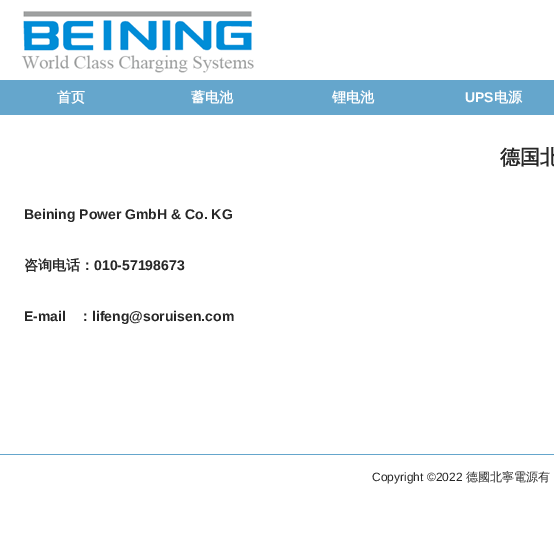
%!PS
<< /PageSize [554 536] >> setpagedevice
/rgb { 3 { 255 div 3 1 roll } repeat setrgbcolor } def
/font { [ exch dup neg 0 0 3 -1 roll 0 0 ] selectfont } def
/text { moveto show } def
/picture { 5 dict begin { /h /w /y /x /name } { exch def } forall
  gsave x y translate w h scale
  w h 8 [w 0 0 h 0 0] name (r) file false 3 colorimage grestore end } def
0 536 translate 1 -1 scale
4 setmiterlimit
255 255 255 rgb
0 0 554 536 rectfill
(img_01.rgb) 21 11 233 62 picture
101 166 204 rgb
0 80 554 35 rectfill
0 454 554 1 rectfill
/WenQuanYiZenHei-Bold 14 font
255 255 255 rgb
(首页) 57 102 text
(蓄电池) 191 102 text
(锂电池) 332 102 text
/LiberationSans-Bold 14 font
(UPS) 465 102 text
/WenQuanYiZenHei-Bold 14 font
(电源) 494 102 text
/WenQuanYiZenHei-Bold 20 font
39 39 39 rgb
(德国北) 500 164 text
/LiberationSans-Bold 14 font
(Beining Power GmbH & Co. KG) 24 219 text
/WenQuanYiZenHei-Bold 14 font
(咨询电话：) 24 270 text
/LiberationSans-Bold 14 font
(010-57198673) 94 270 text
(E-mail) 24 321 text
/WenQuanYiZenHei-Bold 14 font
(：) 78 321 text
/LiberationSans-Bold 14 font
(lifeng@soruisen.com) 92 321 text
/LiberationSans-Regular 12 font
(Copyright ©2022) 372 481 text
/WenQuanYiZenHei-Medium 12 font
(德國北寧電源有) 466 481 text
showpage
